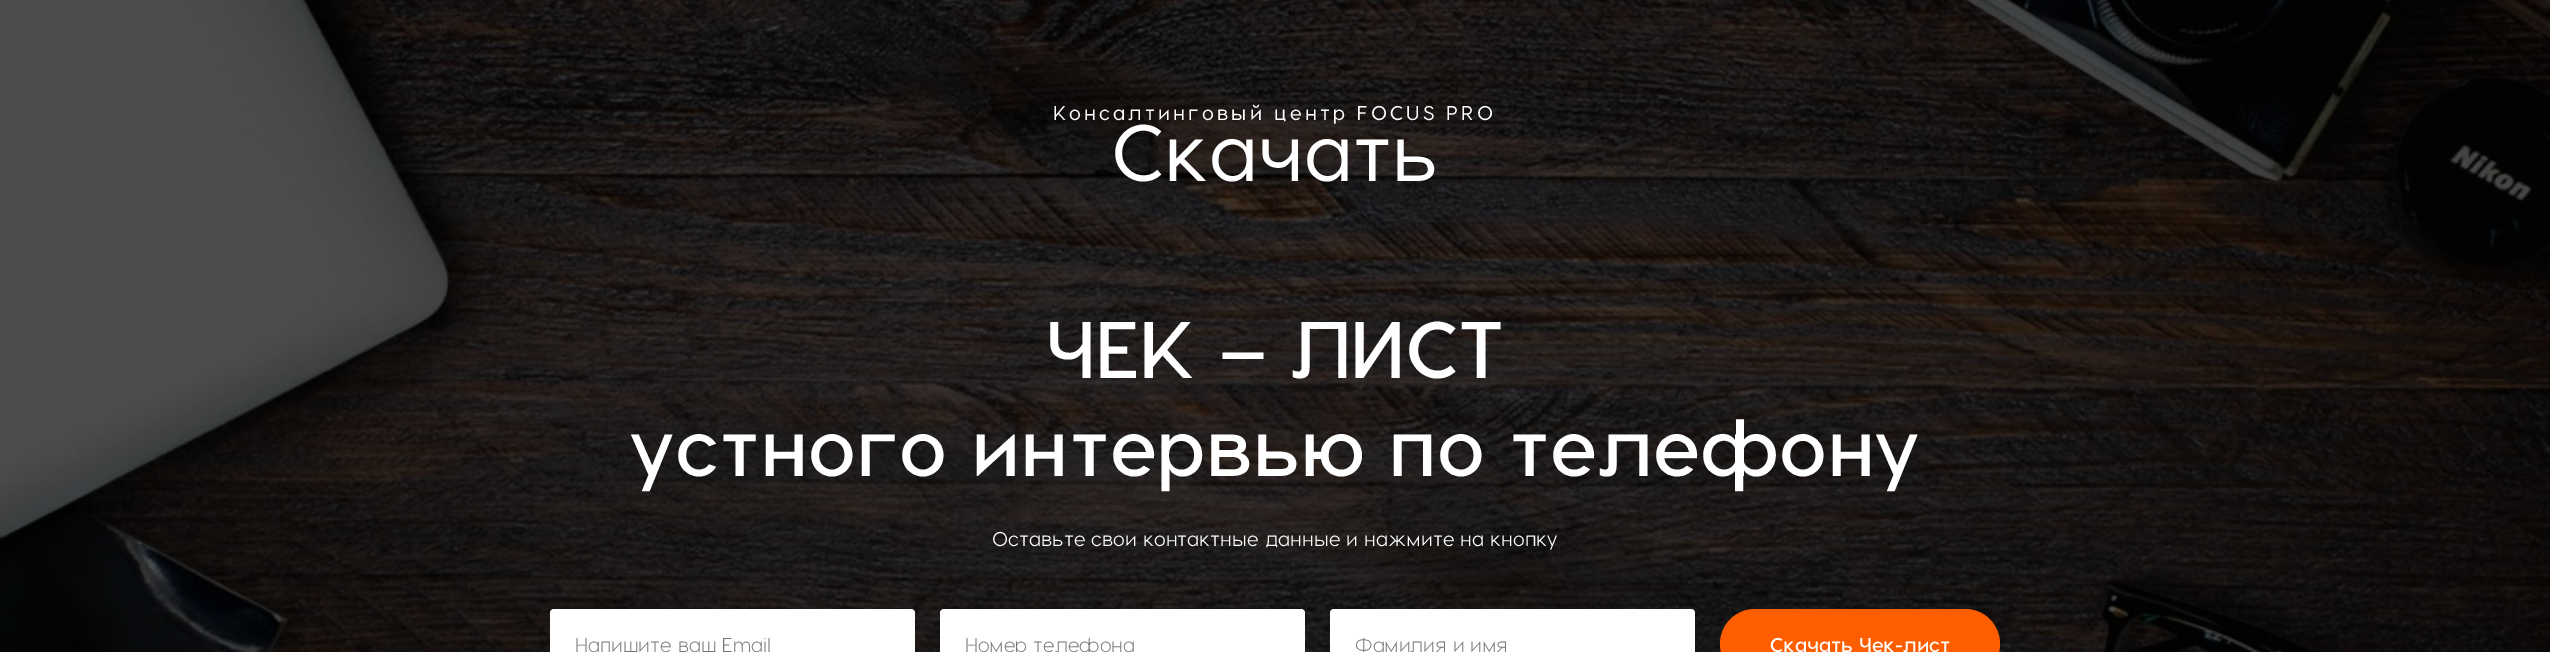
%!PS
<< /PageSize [2550 652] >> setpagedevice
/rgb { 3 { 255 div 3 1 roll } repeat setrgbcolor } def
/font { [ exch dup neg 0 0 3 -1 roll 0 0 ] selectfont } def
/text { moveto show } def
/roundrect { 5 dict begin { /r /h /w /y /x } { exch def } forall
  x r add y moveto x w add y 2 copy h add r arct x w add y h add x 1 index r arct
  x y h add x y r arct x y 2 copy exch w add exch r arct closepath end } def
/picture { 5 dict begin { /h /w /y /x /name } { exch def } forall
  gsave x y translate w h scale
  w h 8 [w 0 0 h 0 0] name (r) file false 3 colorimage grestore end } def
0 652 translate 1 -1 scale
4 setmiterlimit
255 255 255 rgb
0 0 2550 652 rectfill
(img_01.rgb) 0 0 2550 652 picture
550 609 365 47 4 roundrect fill
940 609 365 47 4 roundrect fill
1330 609 365 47 4 roundrect fill
255 94 0 rgb
1720 609 280 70 35 roundrect fill
/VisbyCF-SemiBold 20 font
255 255 255 rgb
1053 120 moveto 3.1 0 (Консалтинговый центр FOCUS PRO) ashow
/VisbyCF-SemiBold 80 font
(Скачать) 1112 181 text
/VisbyCF-Bold 80 font
(ЧЕК – ЛИСТ) 1045 378 text
(устного интервью по телефону) 630 476 text
/VisbyCF-Medium 20 font
(Оставьте свои контактные данные и нажмите на кнопку) 992 546 text
/VisbyCF-Light 20 font
117 117 117 rgb
(Напишите ваш Email) 575 652 text
(Номер телефона) 965 652 text
(Фамилия и имя) 1355 652 text
/VisbyCF-Bold 20 font
255 255 255 rgb
(Скачать Чек-лист) 1770 652 text
showpage
